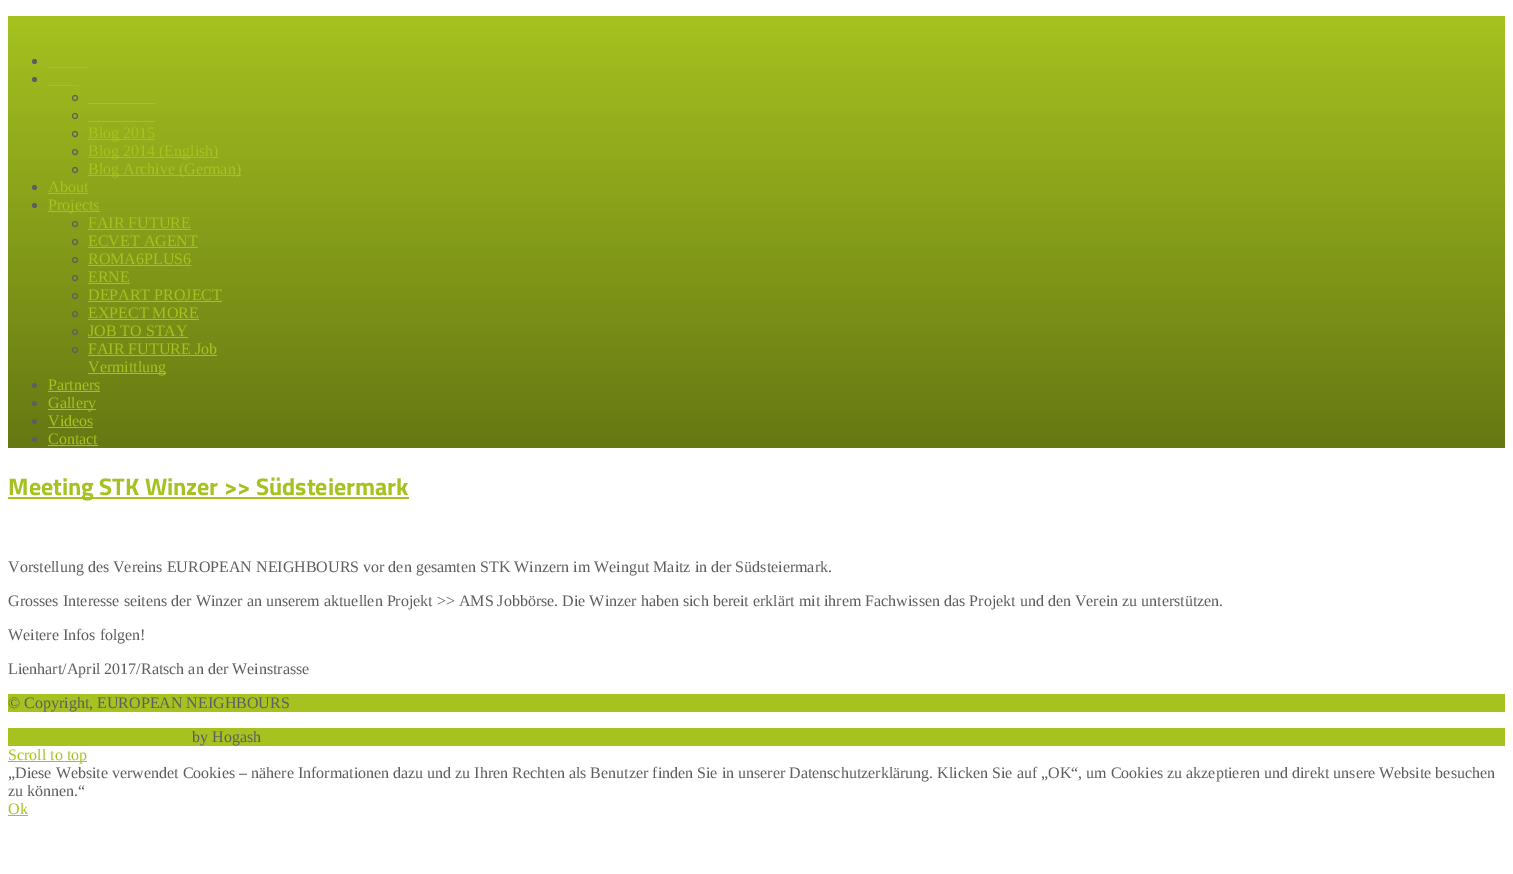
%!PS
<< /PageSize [1513 874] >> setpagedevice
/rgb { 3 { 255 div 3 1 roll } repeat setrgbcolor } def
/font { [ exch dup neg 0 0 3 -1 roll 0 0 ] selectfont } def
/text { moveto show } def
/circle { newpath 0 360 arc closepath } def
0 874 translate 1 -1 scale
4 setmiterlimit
255 255 255 rgb
0 0 1513 874 rectfill
gsave 8 16 moveto 1497 0 rlineto 0 432 rlineto -1497 0 rlineto closepath clip newpath
<< /ShadingType 2 /ColorSpace /DeviceRGB /Coords [757 16 757 448] /Extend [true true] /Function << /FunctionType 2 /Domain [0 1] /C0 [0.647 0.761 0.125] /C1 [0.396 0.471 0.075] /N 1 >> >> shfill grestore
94 94 94 rgb
34.5 61.5 2.5 circle fill
165 194 32 rgb
48 67 39 1 rectfill
94 94 94 rgb
34.5 79.5 2.5 circle fill
165 194 32 rgb
48 85 31 1 rectfill
94 94 94 rgb
75 98 2.5 circle stroke
165 194 32 rgb
88 103 67 1 rectfill
94 94 94 rgb
75 116 2.5 circle stroke
165 194 32 rgb
88 121 67 1 rectfill
94 94 94 rgb
75 134 2.5 circle stroke
165 194 32 rgb
88 139 67 1 rectfill
94 94 94 rgb
75 152 2.5 circle stroke
165 194 32 rgb
88 157 131 1 rectfill
94 94 94 rgb
75 170 2.5 circle stroke
165 194 32 rgb
88 175 153 1 rectfill
94 94 94 rgb
34.5 187.5 2.5 circle fill
165 194 32 rgb
48 193 40 1 rectfill
94 94 94 rgb
34.5 205.5 2.5 circle fill
165 194 32 rgb
48 211 52 1 rectfill
94 94 94 rgb
75 224 2.5 circle stroke
165 194 32 rgb
88 229 103 1 rectfill
94 94 94 rgb
75 242 2.5 circle stroke
165 194 32 rgb
88 247 110 1 rectfill
94 94 94 rgb
75 260 2.5 circle stroke
165 194 32 rgb
88 265 103 1 rectfill
94 94 94 rgb
75 278 2.5 circle stroke
165 194 32 rgb
88 283 42 1 rectfill
94 94 94 rgb
75 296 2.5 circle stroke
165 194 32 rgb
88 301 134 1 rectfill
94 94 94 rgb
75 314 2.5 circle stroke
165 194 32 rgb
88 319 111 1 rectfill
94 94 94 rgb
75 332 2.5 circle stroke
165 194 32 rgb
88 337 100 1 rectfill
94 94 94 rgb
75 350 2.5 circle stroke
165 194 32 rgb
88 355 129 1 rectfill
88 373 78 1 rectfill
94 94 94 rgb
34.5 385.5 2.5 circle fill
165 194 32 rgb
48 391 52 1 rectfill
94 94 94 rgb
34.5 403.5 2.5 circle fill
165 194 32 rgb
48 409 48 1 rectfill
94 94 94 rgb
34.5 421.5 2.5 circle fill
165 194 32 rgb
48 427 45 1 rectfill
94 94 94 rgb
34.5 439.5 2.5 circle fill
165 194 32 rgb
48 445 50 1 rectfill
8 497 401 2 rectfill
8 694 1497 18 rectfill
8 728 1497 18 rectfill
8 761 79 1 rectfill
8 815 20 1 rectfill
/LiberationSerif-Regular 16 font
(Blog 2015) 88 138 text
(Blog 2014 \(English\)) 88 156 text
(Blog Archive \(German\)) 88 174 text
(About) 48 192 text
(Projects) 48 210 text
(FAIR FUTURE) 88 228 text
(ECVET AGENT) 88 246 text
(ROMA6PLUS6) 88 264 text
(ERNE) 88 282 text
(DEPART PROJECT) 88 300 text
(EXPECT MORE) 88 318 text
(JOB TO STAY) 88 336 text
(FAIR FUTURE Job) 88 354 text
(Vermittlung) 88 372 text
(Partners) 48 390 text
(Gallery) 48 408 text
(Videos) 48 426 text
(Contact) 48 444 text
/TitilliumWeb-Bold 24 font
(Meeting STK Winzer >> Südsteiermark) 8 495 text
/LiberationSerif-Regular 16 font
94 94 94 rgb
(Vorstellung des Vereins EUROPEAN NEIGHBOURS vor den gesamten STK Winzern im Weingut Maitz in der Südsteiermark.) 8 572 text
(Grosses Interesse seitens der Winzer an unserem aktuellen Projekt >> AMS Jobbörse. Die Winzer haben sich bereit erklärt mit ihrem Fachwissen das Projekt und den Verein zu unterstützen.) 8 606 text
(Weitere Infos folgen!) 8 640 text
(Lienhart/April 2017/Ratsch an der Weinstrasse) 8 674 text
(© Copyright, EUROPEAN NEIGHBOURS) 8 708 text
(by Hogash) 192 742 text
165 194 32 rgb
(Scroll to top) 8 760 text
94 94 94 rgb
(„Diese Website verwendet Cookies – nähere Informationen dazu und zu Ihren Rechten als Benutzer finden Sie in unserer Datenschutzerklärung. Klicken Sie auf „OK“, um Cookies zu akzeptieren und direkt unsere Website besuchen) 8 778 text
(zu können.“) 8 796 text
165 194 32 rgb
(Ok) 8 814 text
showpage
